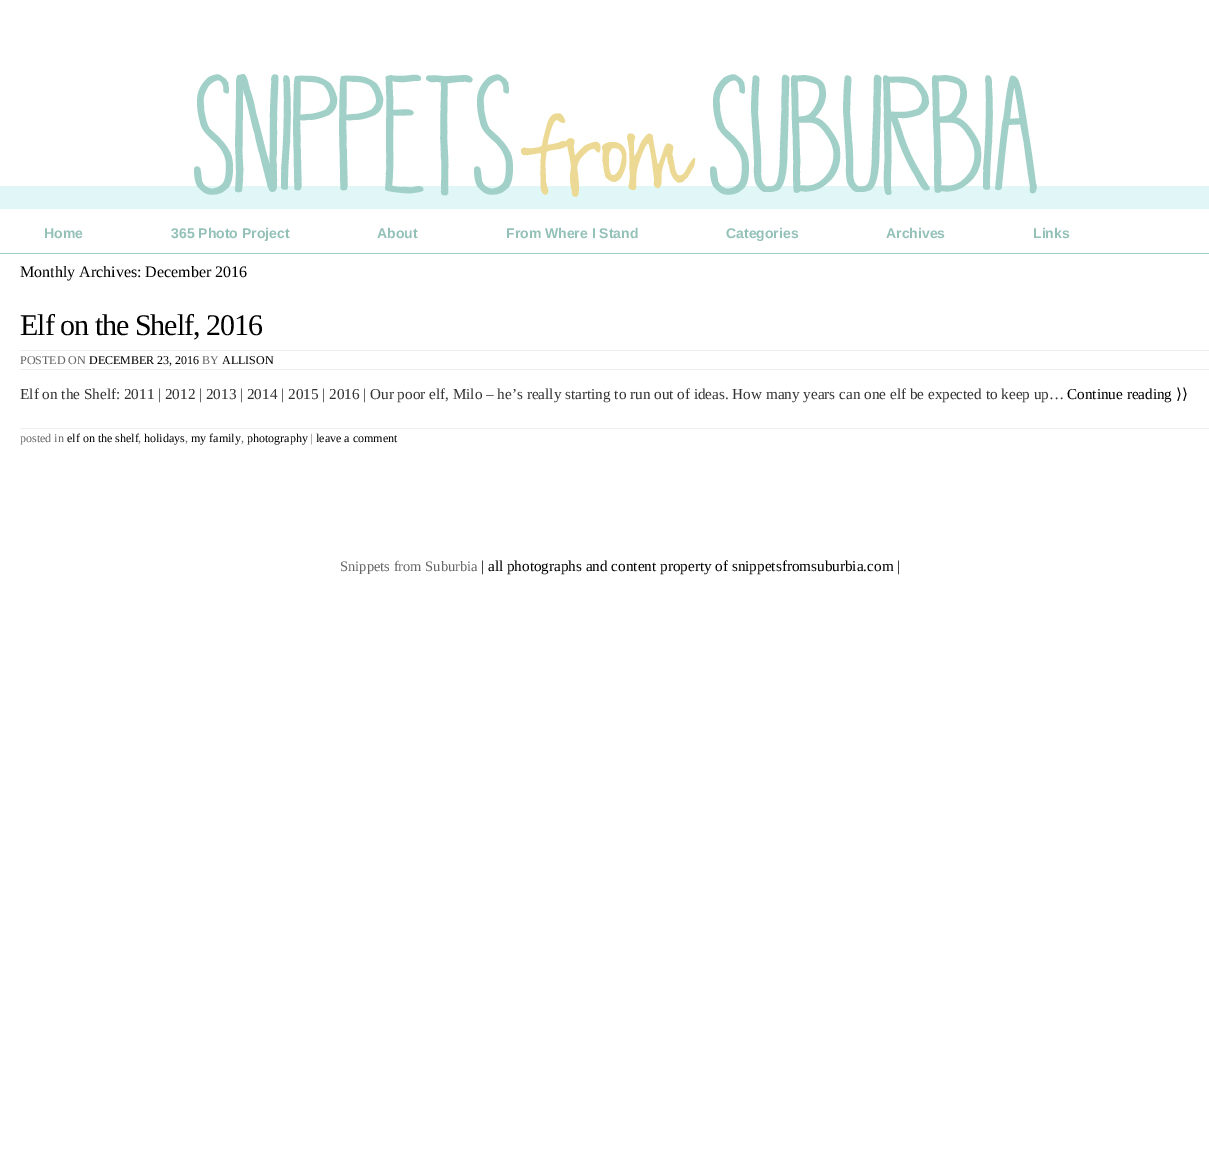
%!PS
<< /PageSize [1209 1153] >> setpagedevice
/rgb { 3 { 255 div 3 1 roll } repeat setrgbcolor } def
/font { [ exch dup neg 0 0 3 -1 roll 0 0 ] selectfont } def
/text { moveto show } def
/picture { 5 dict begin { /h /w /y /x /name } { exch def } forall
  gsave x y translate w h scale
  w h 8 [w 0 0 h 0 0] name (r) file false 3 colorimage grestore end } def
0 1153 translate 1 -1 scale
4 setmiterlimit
255 255 255 rgb
0 0 1209 1153 rectfill
(img_01.rgb) 0 73 1209 136 picture
161 208 200 rgb
0 253 1209 1 rectfill
238 238 238 rgb
20 350 1189 1 rectfill
20 369 1189 1 rectfill
20 428 1189 1 rectfill
/LiberationSans-Bold 14 font
147 193 184 rgb
(Home) 44 238 text
(365 Photo Project) 171 238 text
(About) 377 238 text
(From Where I Stand) 506 238 text
(Categories) 726 238 text
(Archives) 886 238 text
(Links) 1033 238 text
/LiberationSerif-Regular 16 font
0 0 0 rgb
(Monthly Archives: December 2016) 20 277 text
/LiberationSerif-Regular 30 font
20 335 moveto -1 0 (Elf on the Shelf, 2016) ashow
/LiberationSerif-Regular 12 font
102 102 102 rgb
(POSTED ON) 20 364 text
0 0 0 rgb
(DECEMBER 23, 2016) 89 364 text
102 102 102 rgb
(BY) 202 364 text
0 0 0 rgb
(ALLISON) 222 364 text
/LiberationSerif-Regular 15.2 font
51 51 51 rgb
(Elf on the Shelf: 2011 | 2012 | 2013 | 2014 | 2015 | 2016 | Our poor elf, Milo – he’s really starting to run out of ideas. How many years can one elf be expected to keep up…) 20 399 text
0 0 0 rgb
(Continue reading) 1067 399 text
/DejaVuSans-Regular 15.2 font
(⟩⟩) 1176 399 text
/LiberationSerif-Regular 12 font
102 102 102 rgb
(posted in) 20 442 text
0 0 0 rgb
(elf on the shelf) 67 442 text
102 102 102 rgb
(,) 138 442 text
0 0 0 rgb
(holidays) 144 442 text
102 102 102 rgb
(,) 185 442 text
0 0 0 rgb
(my family) 191 442 text
102 102 102 rgb
(,) 241 442 text
0 0 0 rgb
(photography) 247 442 text
102 102 102 rgb
(|) 310 442 text
0 0 0 rgb
(leave a comment) 316 442 text
/LiberationSerif-Regular 14.5 font
102 102 102 rgb
(Snippets from Suburbia) 340 571 text
/LiberationSerif-Regular 15.2 font
0 0 0 rgb
(| all photographs and content property of snippetsfromsuburbia.com |) 481 571 text
showpage
